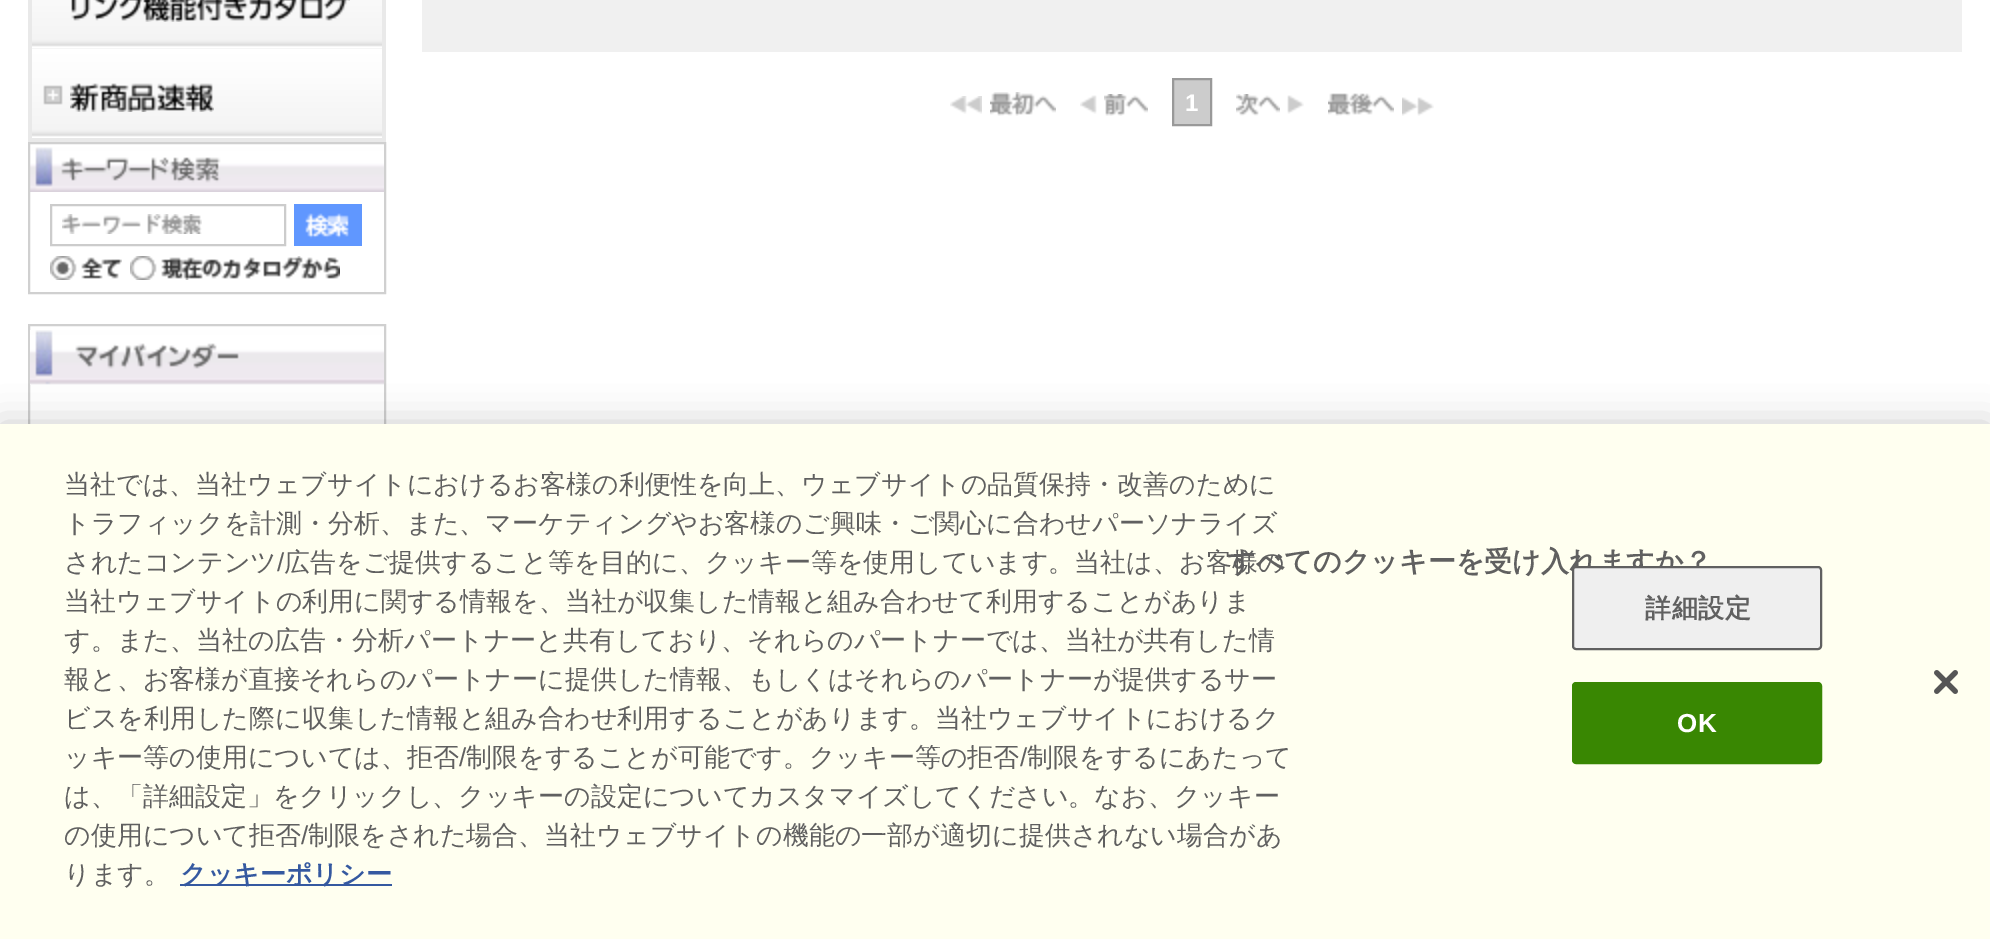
%!PS
<< /PageSize [1990 939] /PageUsesTransparency true >> setpagedevice
/rgb { 3 { 255 div 3 1 roll } repeat setrgbcolor } def
/font { [ exch dup neg 0 0 3 -1 roll 0 0 ] selectfont } def
/text { moveto show } def
/alpha { dup .setfillconstantalpha .setstrokeconstantalpha } def
/roundrect { 5 dict begin { /r /h /w /y /x } { exch def } forall
  x r add y moveto x w add y 2 copy h add r arct x w add y h add x 1 index r arct
  x y h add x y r arct x y 2 copy exch w add exch r arct closepath end } def
/shadow { 12 dict begin { /a /b /q /h /w /y /x } { exch def } forall gsave /was 0 def
  9 -2 -9 { dup b mul 4 div /e exch def 1 sub .425 mul 2.718 exch exp 1 add a .99 .min exch div /now exch def
    1 1 now sub 1 was sub div sub alpha /was now def
    w h .min e 2 mul add 0 gt { x e sub y e sub w e 2 mul add h e 2 mul add
      q e add b .6 mul add w h .min 2 div e add .min 0 .max roundrect fill } if } for grestore end } def
/picture { 5 dict begin { /h /w /y /x /name } { exch def } forall
  gsave x y translate w h scale
  w h 8 [w 0 0 h 0 0] name (r) file false 3 colorimage grestore end } def
0 .pushpdf14devicefilter
0 939 translate 1 -1 scale
4 setmiterlimit
255 255 255 rgb
0 0 1990 939 rectfill
233 233 233 rgb
28 0 358 142 rectfill
(img_01.rgb) 32 0 350 48 picture
(img_02.rgb) 71 0 279 22 picture
(img_03.rgb) 32 48 350 90 picture
(img_04.rgb) 43 85 20 20 picture
(img_05.rgb) 70 83 144 29 picture
(img_06.rgb) 30 147 354 45 picture
208 208 208 rgb
2 setlinewidth
29 143 356 150 rectstroke
(img_07.rgb) 62 214 140 20 picture
204 204 204 rgb
51 205 234 40 rectstroke
(img_08.rgb) 294 204 68 42 picture
(img_09.rgb) 50 256 72 24 picture
(img_10.rgb) 130 256 210 24 picture
208 208 208 rgb
29 325 356 168 rectstroke
(img_11.rgb) 30 330 354 55 picture
240 240 240 rgb
422 0 1540 52 rectfill
(img_12.rgb) 950 96 32 18 picture
(img_13.rgb) 990 92 66 24 picture
(img_14.rgb) 1080 95 17 19 picture
(img_15.rgb) 1104 94 44 22 picture
204 204 204 rgb
1173 79 moveto 38 0 rlineto 0 46 rlineto -38 0 rlineto closepath gsave fill grestore
153 153 153 rgb
stroke
(img_16.rgb) 1287 95 17 19 picture
(img_17.rgb) 1236 94 44 22 picture
(img_18.rgb) 1402 97 32 19 picture
(img_19.rgb) 1328 93 66 23 picture
0 0 0 rgb
0 424 1990 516 0 18 0.2 shadow
255 255 240 rgb
0 424 1990 515 rectfill
53 89 160 rgb
180 884 212 2 rectfill
57 135 2 rgb
1573 683 248 80 3 roundrect gsave fill grestore
stroke
(img_20.rgb) 1934 670 24 24 picture
/LiberationSans-Bold 24 font
255 255 255 rgb
(1) 1185 111 text
/WenQuanYiZenHei-Medium 26 font
96 96 96 rgb
(当社では、当社ウェブサイトにおけるお客様の利便性を向上、ウェブサイトの品質保持・改善のために) 64 493 text
(トラフィックを計測・分析、また、マーケティングやお客様のご興味・ご関心に合わせパーソナライズ) 64 532 text
(されたコンテンツ) 64 571 text
/LiberationSans-Regular 26 font
(/) 277 571 text
/WenQuanYiZenHei-Medium 26 font
(広告をご提供すること等を目的に、クッキー等を使用しています。当社は、お客様の) 284 571 text
(当社ウェブサイトの利用に関する情報を、当社が収集した情報と組み合わせて利用することがありま) 64 610 text
(す。また、当社の広告・分析パートナーと共有しており、それらのパートナーでは、当社が共有した情) 64 649 text
(報と、お客様が直接それらのパートナーに提供した情報、もしくはそれらのパートナーが提供するサー) 64 688 text
(ビスを利用した際に収集した情報と組み合わせ利用することがあります。当社ウェブサイトにおけるク) 64 727 text
(ッキー等の使用については、拒否) 64 766 text
/LiberationSans-Regular 26 font
(/) 459 766 text
/WenQuanYiZenHei-Medium 26 font
(制限をすることが可能です。クッキー等の拒否) 466 766 text
/LiberationSans-Regular 26 font
(/) 1020 766 text
/WenQuanYiZenHei-Medium 26 font
(制限をするにあたって) 1027 766 text
(は、「詳細設定」をクリックし、クッキーの設定についてカスタマイズしてください。なお、クッキー) 64 805 text
(の使用について拒否) 64 844 text
/LiberationSans-Regular 26 font
(/) 301 844 text
/WenQuanYiZenHei-Medium 26 font
(制限をされた場合、当社ウェブサイトの機能の一部が適切に提供されない場合があ) 308 844 text
(ります。) 64 883 text
/WenQuanYiZenHei-Bold 26 font
53 89 160 rgb
(クッキーポリシー) 180 883 text
/WenQuanYiZenHei-Bold 28 font
96 96 96 rgb
(すべてのクッキーを受け入れますか？) 1227 571 text
239 239 239 rgb
1573 567 248 82 3 roundrect gsave fill grestore
96 96 96 rgb
stroke
/WenQuanYiZenHei-Bold 26 font
1645 617 moveto 0.5 0 (詳細設定) ashow
/LiberationSans-Bold 26 font
255 255 255 rgb
1677 732 moveto 0.5 0 (OK) ashow
.poppdf14devicefilter showpage
